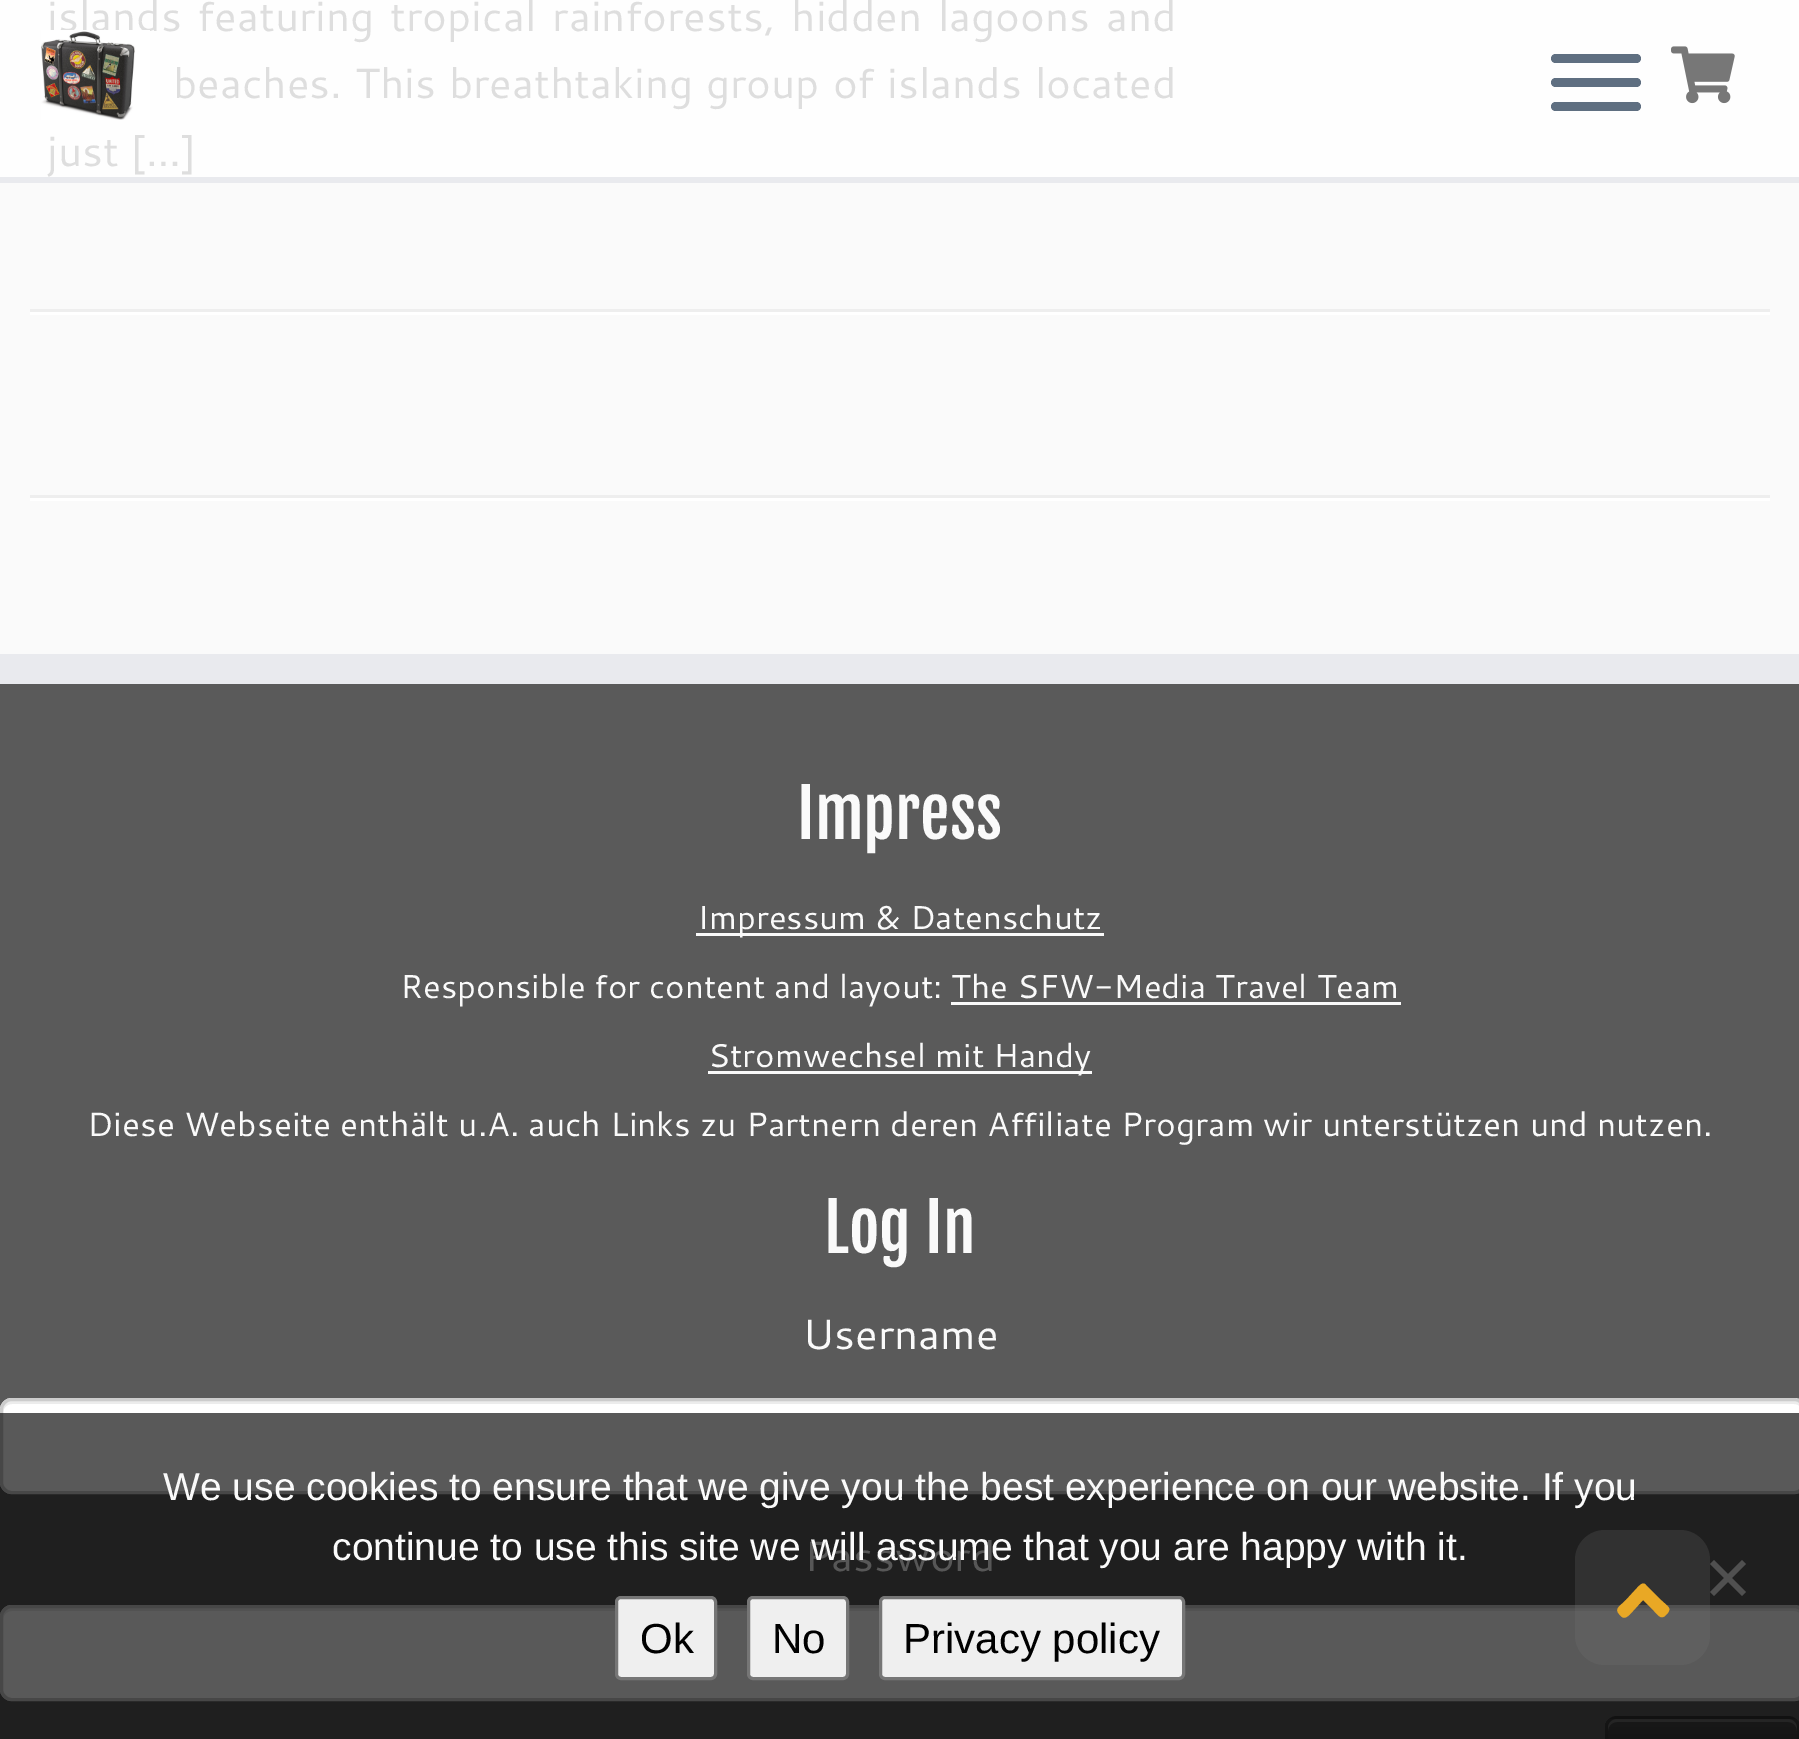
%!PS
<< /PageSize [1799 1739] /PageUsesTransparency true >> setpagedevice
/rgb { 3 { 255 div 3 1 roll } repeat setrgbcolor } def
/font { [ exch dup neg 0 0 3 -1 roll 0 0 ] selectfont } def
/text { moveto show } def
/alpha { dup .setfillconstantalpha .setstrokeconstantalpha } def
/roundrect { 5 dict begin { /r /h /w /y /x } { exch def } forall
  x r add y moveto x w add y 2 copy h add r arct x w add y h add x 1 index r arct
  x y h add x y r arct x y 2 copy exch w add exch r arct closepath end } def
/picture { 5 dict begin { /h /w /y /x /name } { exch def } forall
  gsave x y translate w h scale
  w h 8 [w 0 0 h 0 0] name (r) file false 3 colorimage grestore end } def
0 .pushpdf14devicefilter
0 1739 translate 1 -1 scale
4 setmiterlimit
250 250 250 rgb
0 0 1799 1739 rectfill
254 254 254 rgb
0 0 1799 177 rectfill
238 238 238 rgb
30 309 1740 3 rectfill
255 255 255 rgb
30 312 1740 3 rectfill
238 238 238 rgb
30 495 1740 3 rectfill
255 255 255 rgb
30 498 1740 3 rectfill
233 234 238 rgb
0 177 1799 6 rectfill
95 111 129 rgb
1551 54 90 9 4.5 roundrect fill
1551 78 90 9 4.5 roundrect fill
1551 102 90 9 4.5 roundrect fill
(img_02.rgb) 1671 46 64 58 picture
90 90 90 rgb
0 684 1799 1055 rectfill
233 234 238 rgb
0 654 1799 30 rectfill
250 250 250 rgb
696 933 408 3 rectfill
951 1002 450 3 rectfill
708 1071 384 3 rectfill
255 255 255 rgb
0 1398 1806 96 12 roundrect fill
236 236 236 rgb
12 1404 moveto 1782 0 rlineto 5 0 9 4 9 9 rcurveto 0 -3 rlineto 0 -5 -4 -9 -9 -9 rcurveto -1782 0 rlineto -5 0 -9 4 -9 9 rcurveto 0 3 rlineto 0 -5 4 -9 9 -9 rcurveto closepath fill
204 204 204 rgb
3 setlinewidth
1.5 1399.5 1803 93 10.5 roundrect stroke
255 255 255 rgb
0 1605 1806 96 12 roundrect fill
236 236 236 rgb
12 1611 moveto 1782 0 rlineto 5 0 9 4 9 9 rcurveto 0 -3 rlineto 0 -5 -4 -9 -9 -9 rcurveto -1782 0 rlineto -5 0 -9 4 -9 9 rcurveto 0 3 rlineto 0 -5 4 -9 9 -9 rcurveto closepath fill
204 204 204 rgb
1.5 1606.5 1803 93 10.5 roundrect stroke
54 54 54 rgb
1605 1716 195 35 12 roundrect fill
gsave
1605 1716 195 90 12 roundrect clip newpath
gsave 1605 1719 moveto 194 0 rlineto 0 20 rlineto -194 0 rlineto closepath clip newpath
<< /ShadingType 2 /ColorSpace /DeviceRGB /Coords [1703 1719 1703 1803] /Extend [true true] /Function << /FunctionType 2 /Domain [0 1] /C0 [0.267 0.267 0.267] /C1 [0.133 0.133 0.133] /N 1 >> >> shfill grestore
grestore
0.2 alpha
255 255 255 rgb
1617 1722 moveto 171 0 rlineto 5 0 9 4 9 9 rcurveto 0 -3 rlineto 0 -5 -4 -9 -9 -9 rcurveto -171 0 rlineto -5 0 -9 4 -9 9 rcurveto 0 3 rlineto 0 -5 4 -9 9 -9 rcurveto closepath fill
0.1 alpha
0 0 0 rgb
1609.5 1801.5 moveto -2 -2 -3 -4.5 -3 -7.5 rcurveto 0 -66 rlineto 0 -3 1 -5.5 3 -7.5 rcurveto 2 -2 4.5 -3 7.5 -3 rcurveto 171 0 rlineto 3 0 5.5 1 7.5 3 rcurveto 2 2 3 4.5 3 7.5 rcurveto 0 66 rlineto 0 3 -1 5.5 -3 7.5 rcurveto stroke
/Cantarell-Regular 42 font
1 alpha
222 222 222 rgb
47 31 moveto 4.5 0 32 (islands featuring tropical rainforests, hidden lagoons and) widthshow
173 98 moveto 1.5 0 32 (beaches. This breathtaking group of islands located) widthshow
(just […]) 47 166 text
(img_01.rgb) 41 30 109 90 picture
/FjallaOne-Regular 66 font
250 250 250 rgb
(Impress) 797 839 text
/Cantarell-Regular 33 font
(Impressum & Datenschutz) 697 929 text
(Responsible for content and layout: The SFW-Media Travel Team) 400 998 text
(Stromwechsel mit Handy) 708 1067 text
/Cantarell-Regular 33.6 font
87 1136 moveto -0.1 0 32 (Diese Webseite enthält u.A. auch Links zu Partnern deren Affiliate Program wir unterstützen und nutzen.) widthshow
/FjallaOne-Regular 66 font
(Log In) 824 1253 text
/Cantarell-Regular 42 font
(Username) 802 1349 text
(Password) 804 1571 text
0.65 alpha
0 0 0 rgb
0 1413 1799 326 rectfill
/LiberationSans-Regular 39 font
1 alpha
250 250 250 rgb
(We use cookies to ensure that we give you the best experience on our website. If you) 163 1500 text
(continue to use this site we will assume that you are happy with it.) 332 1560 text
80 80 80 rgb
1742 1560 moveto 4 4 rlineto -32 32 rlineto -4 -4 rlineto closepath fill
1710 1564 moveto 4 -4 rlineto 32 32 rlineto -4 4 rlineto closepath fill
239 239 239 rgb
616.5 1597.5 99 81 4.5 roundrect gsave fill grestore
118 118 118 rgb
stroke
/LiberationSans-Regular 42 font
0 0 0 rgb
(Ok) 640 1653 text
239 239 239 rgb
748.5 1597.5 99 81 4.5 roundrect gsave fill grestore
118 118 118 rgb
stroke
0 0 0 rgb
(No) 772 1653 text
239 239 239 rgb
880.5 1597.5 303 81 4.5 roundrect gsave fill grestore
118 118 118 rgb
stroke
0 0 0 rgb
(Privacy policy) 903 1653 text
0.2 alpha
119 119 119 rgb
1575 1530 135 135 30 roundrect fill
1 alpha
233 168 37 rgb
1646 1585 moveto 15 15 rlineto 7 7 12 8 5 15 rcurveto -5 5 -7 1 -12 -4 rcurveto -11 -11 rlineto -10 11 rlineto -2 2 -7 9 -11 6 rcurveto -9 -8 -4 -9 4 -17 rcurveto 11 -12 rlineto 2 -2 6 -7 9 -3 rcurveto closepath fill
.poppdf14devicefilter showpage
